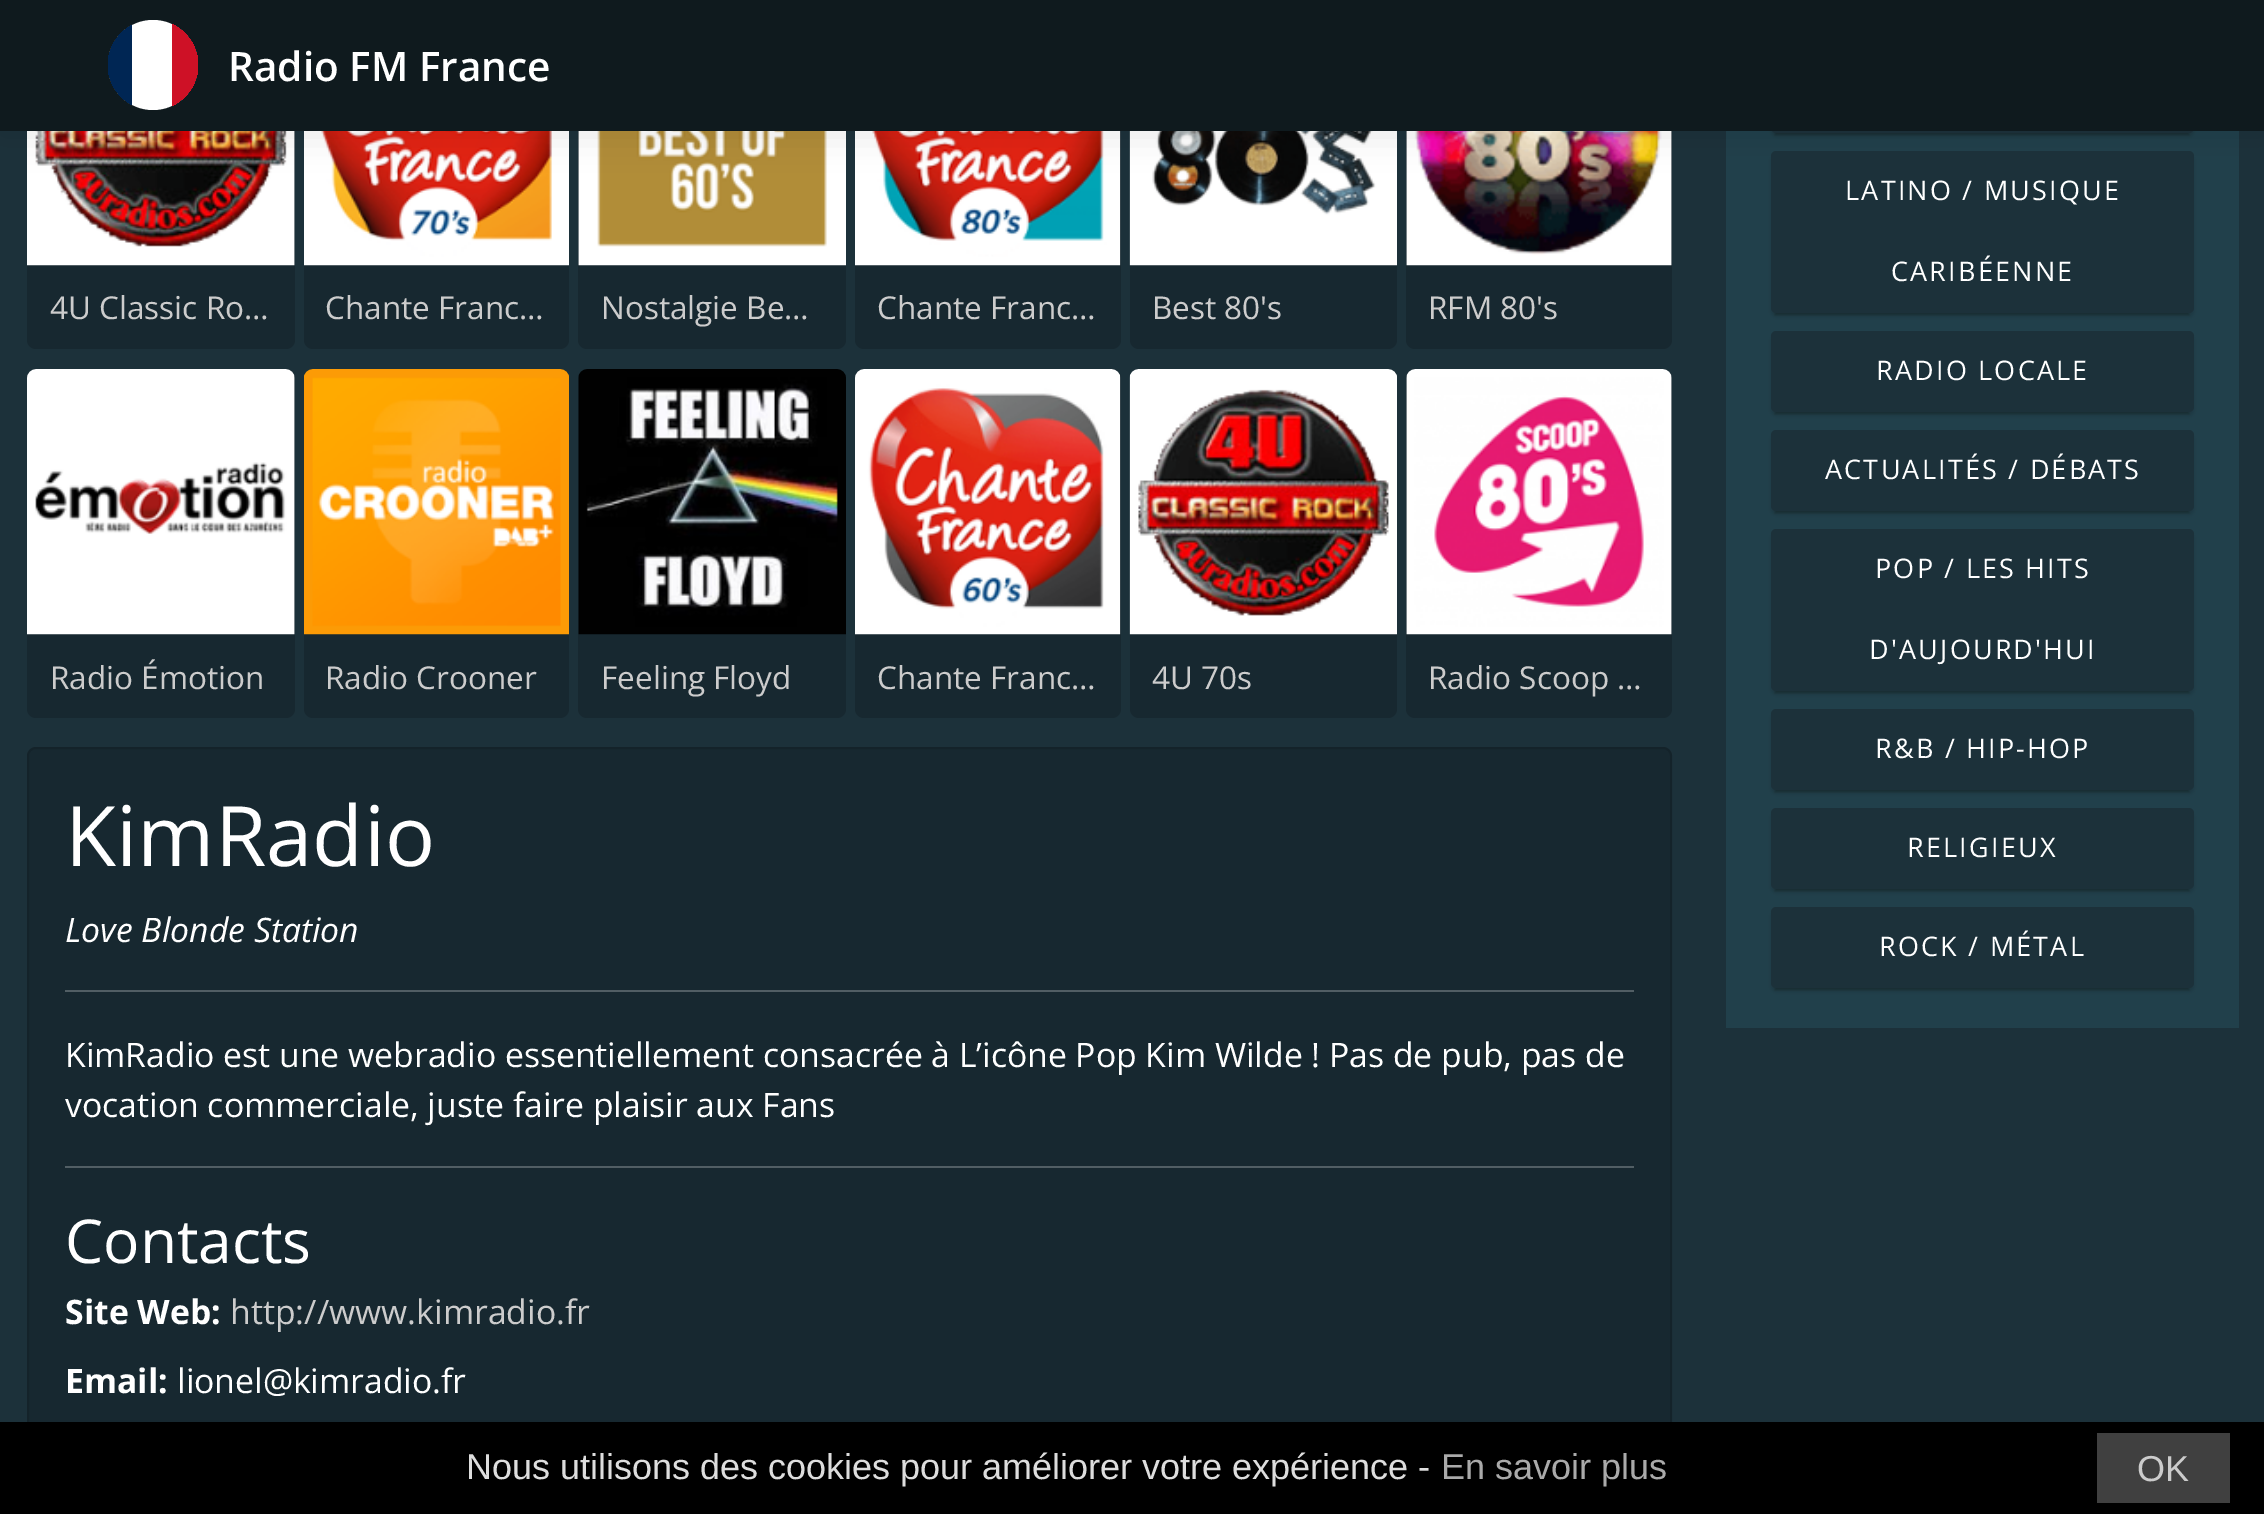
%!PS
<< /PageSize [2264 1514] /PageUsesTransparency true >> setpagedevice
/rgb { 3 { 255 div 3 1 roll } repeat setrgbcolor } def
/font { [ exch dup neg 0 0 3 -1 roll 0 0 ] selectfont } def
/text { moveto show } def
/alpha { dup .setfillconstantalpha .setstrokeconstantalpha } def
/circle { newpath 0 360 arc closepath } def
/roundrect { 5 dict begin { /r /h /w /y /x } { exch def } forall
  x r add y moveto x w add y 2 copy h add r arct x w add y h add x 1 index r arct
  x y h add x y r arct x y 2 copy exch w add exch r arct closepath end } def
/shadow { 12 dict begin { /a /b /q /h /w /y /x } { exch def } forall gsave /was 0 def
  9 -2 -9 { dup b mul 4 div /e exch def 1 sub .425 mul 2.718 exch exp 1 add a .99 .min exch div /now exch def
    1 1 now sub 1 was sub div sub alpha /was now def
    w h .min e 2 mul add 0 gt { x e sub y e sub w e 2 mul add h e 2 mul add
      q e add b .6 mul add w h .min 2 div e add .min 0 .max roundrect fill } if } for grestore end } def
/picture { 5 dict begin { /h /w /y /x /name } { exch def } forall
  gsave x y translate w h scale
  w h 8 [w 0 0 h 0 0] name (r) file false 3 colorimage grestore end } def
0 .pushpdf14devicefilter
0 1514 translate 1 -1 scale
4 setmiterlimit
28 49 58 rgb
0 0 2264 1514 rectfill
23 40 48 rgb
27 -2 268 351 9 roundrect fill
(img_01.rgb) 27 131 268 135 picture
304 -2 265 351 9 roundrect fill
(img_02.rgb) 304 131 265 135 picture
578 -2 268 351 9 roundrect fill
(img_03.rgb) 578 131 268 135 picture
855 -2 266 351 9 roundrect fill
(img_04.rgb) 855 131 266 135 picture
1130 -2 267 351 9 roundrect fill
(img_05.rgb) 1129 131 268 135 picture
1406 -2 266 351 9 roundrect fill
(img_06.rgb) 1406 131 266 135 picture
33 64 75 rgb
1726 131 513 897 rectfill
0 0 0 rgb
1771 56 423 81 5 2 0.14 shadow
1775 63 414 72 0 1 0.2 shadow
28 49 58 rgb
1771 52 423 81 5 roundrect fill
0 0 0 rgb
1771 155 423 162 5 2 0.14 shadow
1775 162 414 153 0 1 0.2 shadow
28 49 58 rgb
1771 151 423 162 5 roundrect fill
0 0 0 rgb
0 5 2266 130 0 17 0.1 shadow
15 26 30 rgb
0 0 2264 131 rectfill
255 255 255 rgb
153 65 45 circle fill
gsave
108 20 90 90 45 roundrect clip newpath
0 38 84 rgb
108 25 24 80 rectfill
206 17 38 rgb
172 24 26 82 rectfill
grestore
23 40 48 rgb
27 369 268 349 9 roundrect fill
(img_07.rgb) 27 369 268 266 picture
304 369 265 349 9 roundrect fill
(img_08.rgb) 304 369 265 266 picture
578 369 268 349 9 roundrect fill
(img_09.rgb) 578 369 268 266 picture
855 369 266 349 9 roundrect fill
(img_10.rgb) 855 369 266 266 picture
1130 369 267 349 9 roundrect fill
(img_11.rgb) 1129 369 268 266 picture
1406 369 266 349 9 roundrect fill
(img_12.rgb) 1406 369 266 266 picture
27 747 1645 725 9 roundrect fill
0.12 alpha
0 0 0 rgb
2 setlinewidth
28 748 1643 723 8 roundrect stroke
1 alpha
81 94 100 rgb
65 990 1569 2 rectfill
65 1166 1569 2 rectfill
0 0 0 rgb
1771 335 423 81 5 2 0.14 shadow
1775 342 414 72 0 1 0.2 shadow
28 49 58 rgb
1771 331 423 81 5 roundrect fill
0 0 0 rgb
1771 434 423 81 5 2 0.14 shadow
1775 441 414 72 0 1 0.2 shadow
28 49 58 rgb
1771 430 423 81 5 roundrect fill
0 0 0 rgb
1771 533 423 162 5 2 0.14 shadow
1775 540 414 153 0 1 0.2 shadow
28 49 58 rgb
1771 529 423 162 5 roundrect fill
0 0 0 rgb
1771 713 423 81 5 2 0.14 shadow
1775 720 414 72 0 1 0.2 shadow
28 49 58 rgb
1771 709 423 81 5 roundrect fill
0 0 0 rgb
1771 812 423 81 5 2 0.14 shadow
1775 819 414 72 0 1 0.2 shadow
28 49 58 rgb
1771 808 423 81 5 roundrect fill
0 0 0 rgb
1771 911 423 81 5 2 0.14 shadow
1775 918 414 72 0 1 0.2 shadow
28 49 58 rgb
1771 907 423 81 5 roundrect fill
0 0 0 rgb
0 1422 2264 92 rectfill
64 64 64 rgb
2097 1433 133 70 rectfill
/OpenSans-SemiBold 40.5 font
255 255 255 rgb
(Radio FM France) 228 81 text
/OpenSans-Regular 31.5 font
204 204 204 rgb
(4U Classic Ro…) 50 319 text
(Chante Franc…) 325 319 text
(Nostalgie Be…) 601 319 text
(Chante Franc…) 877 319 text
(Best 80's) 1152 319 text
(RFM 80's) 1428 319 text
(Radio Émotion) 50 689 text
(Radio Crooner) 325 689 text
(Feeling Floyd) 601 689 text
(Chante Franc…) 877 689 text
(4U 70s) 1152 689 text
(Radio Scoop …) 1428 689 text
/OpenSans-Regular 83.5 font
255 255 255 rgb
(KimRadio) 65 866 text
/OpenSans-Italic 33.75 font
(Love Blonde Station) 65 942 text
/OpenSans-Regular 33.75 font
(KimRadio est une webradio essentiellement consacrée à L’icône Pop Kim Wilde ! Pas de pub, pas de) 65 1067 text
(vocation commerciale, juste faire plaisir aux Fans) 65 1117 text
/OpenSans-Regular 60.5 font
(Contacts) 65 1263 text
/OpenSans-Bold 33.75 font
(Site Web:) 65 1324 text
/OpenSans-Regular 33.75 font
204 204 204 rgb
(http://www.kimradio.fr) 230 1324 text
/OpenSans-Bold 33.75 font
255 255 255 rgb
(Email:) 65 1393 text
/OpenSans-Regular 33.75 font
(lionel@kimradio.fr) 177 1393 text
/OpenSans-Regular 27 font
1845 200 moveto 2.2 0 (LATINO / MUSIQUE) ashow
1891 281 moveto 2.2 0 (CARIBÉENNE) ashow
1876 380 moveto 2.2 0 (RADIO LOCALE) ashow
1825 479 moveto 2.2 0 (ACTUALITÉS / DÉBATS) ashow
1875 578 moveto 2.2 0 (POP / LES HITS) ashow
1869 659 moveto 2.2 0 (D'AUJOURD'HUI) ashow
1875 758 moveto 2.2 0 (R&B / HIP-HOP) ashow
1907 857 moveto 2.2 0 (RELIGIEUX) ashow
1879 956 moveto 2.2 0 (ROCK / MÉTAL) ashow
/LiberationSans-Regular 36 font
221 221 221 rgb
(Nous utilisons des cookies pour améliorer votre expérience -) 466 1479 text
170 170 170 rgb
(En savoir plus) 1441 1479 text
204 204 204 rgb
(OK) 2137 1481 text
.poppdf14devicefilter showpage
